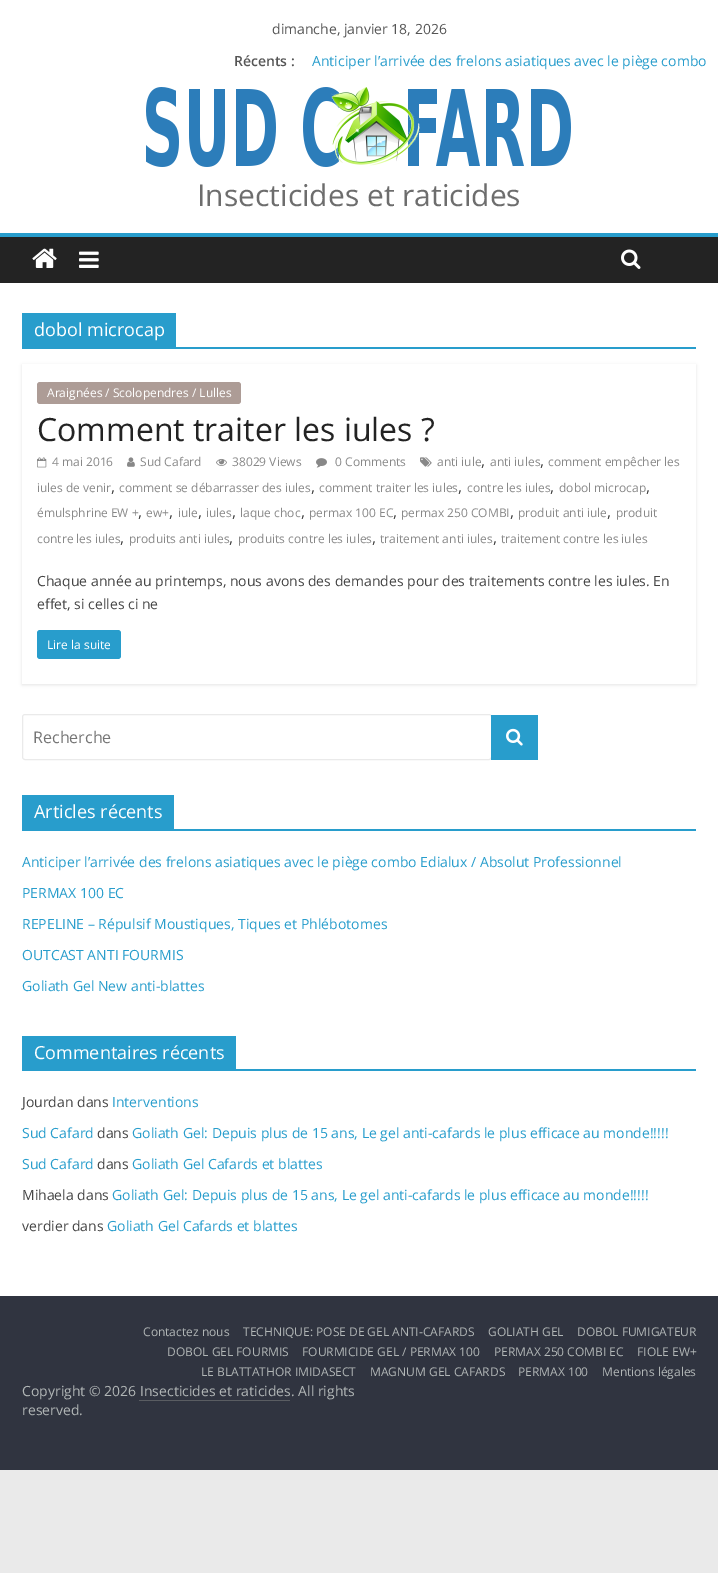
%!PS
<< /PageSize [718 1573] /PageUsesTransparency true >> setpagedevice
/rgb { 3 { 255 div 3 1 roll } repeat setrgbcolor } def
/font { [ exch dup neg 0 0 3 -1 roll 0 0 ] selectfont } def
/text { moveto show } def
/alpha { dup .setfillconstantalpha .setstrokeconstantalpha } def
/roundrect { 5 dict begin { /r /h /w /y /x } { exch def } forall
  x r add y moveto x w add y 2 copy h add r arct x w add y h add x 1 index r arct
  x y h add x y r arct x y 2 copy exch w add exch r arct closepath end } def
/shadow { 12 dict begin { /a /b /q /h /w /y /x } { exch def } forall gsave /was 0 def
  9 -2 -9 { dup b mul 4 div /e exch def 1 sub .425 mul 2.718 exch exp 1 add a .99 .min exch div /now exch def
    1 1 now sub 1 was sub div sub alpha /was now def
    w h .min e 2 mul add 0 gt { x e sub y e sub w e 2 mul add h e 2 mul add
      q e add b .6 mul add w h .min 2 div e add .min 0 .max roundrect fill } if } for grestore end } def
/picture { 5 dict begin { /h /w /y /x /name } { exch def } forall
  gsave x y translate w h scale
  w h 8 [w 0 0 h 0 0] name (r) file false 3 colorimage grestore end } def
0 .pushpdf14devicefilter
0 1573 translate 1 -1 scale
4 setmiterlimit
234 234 234 rgb
0 0 718 1573 rectfill
255 255 255 rgb
0 0 718 233 rectfill
(img_01.rgb) 146 87 425 80 picture
35 35 35 rgb
0 237 718 46 rectfill
40 157 204 rgb
0 233 718 4 rectfill
(img_02.rgb) 32 248 25 20 picture
(img_03.rgb) 79 251 20 17 picture
(img_04.rgb) 621 249 20 20 picture
255 255 255 rgb
0 283 718 1013 rectfill
40 157 204 rgb
22 347 674 2 rectfill
22 313 154 34 rectfill
gsave
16 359 moveto 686 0 rlineto 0 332 rlineto -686 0 rlineto closepath 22 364 moveto 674 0 rlineto 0 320 rlineto -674 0 rlineto closepath eoclip newpath
0 0 0 rgb
22 365 674 320 0 1.5 0.1 shadow
grestore
173 156 150 rgb
37 382 204 22 3 roundrect fill
(img_05.rgb) 420 457 12 10 picture
(img_06.rgb) 37 457 10 11 picture
(img_07.rgb) 127 457 8 10 picture
(img_08.rgb) 216 458 11 8 picture
(img_09.rgb) 316 458 11 10 picture
40 157 204 rgb
37 630 84 29 3 roundrect fill
234 234 234 rgb
22.5 714.5 469 45 2.5 roundrect stroke
40 157 204 rgb
491 715 47 45 rectfill
(img_10.rgb) 506 728 17 18 picture
22 829 674 2 rectfill
22 795 152 34 rectfill
22 1069 674 2 rectfill
22 1036 214 33 rectfill
48 52 64 rgb
0 1296 718 174 rectfill
90 93 98 rgb
139 1400 151 1 rectfill
/OpenSans-Regular 14 font
85 85 85 rgb
(dimanche, janvier 18, 2026) 272 34 text
/OpenSans-SemiBold 14 font
(Récents :) 234 66 text
/OpenSans-Regular 14 font
40 157 204 rgb
(Anticiper l’arrivée des frelons asiatiques avec le piège combo) 312 66 text
/OpenSans-Regular 30 font
109 109 109 rgb
(Insecticides et raticides) 197 206 text
/OpenSans-Regular 18 font
255 255 255 rgb
(dobol microcap) 34 336 text
/OpenSans-Regular 12 font
(Araignées / Scolopendres / Lulles) 47 397 text
/OpenSans-Regular 32 font
35 35 35 rgb
(Comment traiter les iules ?) 37 441 text
/OpenSans-Regular 12 font
136 136 136 rgb
(anti iule) 437 466 text
/OpenSans-Regular 16 font
68 68 68 rgb
(,) 481 466 text
/OpenSans-Regular 12 font
136 136 136 rgb
(anti iules) 490 466 text
/OpenSans-Regular 16 font
68 68 68 rgb
(,) 540 466 text
/OpenSans-Regular 12 font
136 136 136 rgb
(comment empêcher les) 548 466 text
(iules de venir) 37 492 text
/OpenSans-Regular 16 font
68 68 68 rgb
(,) 111 492 text
/OpenSans-Regular 12 font
136 136 136 rgb
(comment se débarrasser des iules) 119 492 text
/OpenSans-Regular 16 font
68 68 68 rgb
(,) 311 492 text
/OpenSans-Regular 12 font
136 136 136 rgb
(comment traiter les iules) 319 492 text
/OpenSans-Regular 16 font
68 68 68 rgb
(,) 458 492 text
/OpenSans-Regular 12 font
136 136 136 rgb
(contre les iules) 467 492 text
/OpenSans-Regular 16 font
68 68 68 rgb
(,) 550 492 text
/OpenSans-Regular 12 font
136 136 136 rgb
(dobol microcap) 559 492 text
/OpenSans-Regular 16 font
68 68 68 rgb
(,) 646 492 text
/OpenSans-Regular 12 font
136 136 136 rgb
(émulsphrine EW +) 37 517 text
/OpenSans-Regular 16 font
68 68 68 rgb
(,) 138 517 text
/OpenSans-Regular 12 font
136 136 136 rgb
(ew+) 146 517 text
/OpenSans-Regular 16 font
68 68 68 rgb
(,) 169 517 text
/OpenSans-Regular 12 font
136 136 136 rgb
(iule) 178 517 text
/OpenSans-Regular 16 font
68 68 68 rgb
(,) 198 517 text
/OpenSans-Regular 12 font
136 136 136 rgb
(iules) 206 517 text
/OpenSans-Regular 16 font
68 68 68 rgb
(,) 232 517 text
/OpenSans-Regular 12 font
136 136 136 rgb
(laque choc) 240 517 text
/OpenSans-Regular 16 font
68 68 68 rgb
(,) 301 517 text
/OpenSans-Regular 12 font
136 136 136 rgb
(permax 100 EC) 309 517 text
/OpenSans-Regular 16 font
68 68 68 rgb
(,) 393 517 text
/OpenSans-Regular 12 font
136 136 136 rgb
(permax 250 COMBI) 401 517 text
/OpenSans-Regular 16 font
68 68 68 rgb
(,) 510 517 text
/OpenSans-Regular 12 font
136 136 136 rgb
(produit anti iule) 518 517 text
/OpenSans-Regular 16 font
68 68 68 rgb
(,) 607 517 text
/OpenSans-Regular 12 font
136 136 136 rgb
(produit) 616 517 text
(contre les iules) 37 543 text
/OpenSans-Regular 16 font
68 68 68 rgb
(,) 120 543 text
/OpenSans-Regular 12 font
136 136 136 rgb
(produits anti iules) 129 543 text
/OpenSans-Regular 16 font
68 68 68 rgb
(,) 229 543 text
/OpenSans-Regular 12 font
136 136 136 rgb
(produits contre les iules) 238 543 text
/OpenSans-Regular 16 font
68 68 68 rgb
(,) 372 543 text
/OpenSans-Regular 12 font
136 136 136 rgb
(traitement anti iules) 380 543 text
/OpenSans-Regular 16 font
68 68 68 rgb
(,) 493 543 text
/OpenSans-Regular 12 font
136 136 136 rgb
(traitement contre les iules) 501 543 text
(4 mai 2016) 52 466 text
(Sud Cafard) 140 466 text
(38029 Views) 232 466 text
(0 Comments) 335 466 text
/OpenSans-Regular 14 font
68 68 68 rgb
(Chaque année au printemps, nous avons des demandes pour des traitements contre les iules. En) 37 586 text
(effet, si celles ci ne) 37 609 text
/OpenSans-Regular 12 font
255 255 255 rgb
(Lire la suite) 47 649 text
/OpenSans-Regular 16 font
117 117 117 rgb
(Recherche) 33 743 text
/OpenSans-Regular 18 font
255 255 255 rgb
(Articles récents) 34 818 text
/OpenSans-Regular 14 font
40 157 204 rgb
(Anticiper l’arrivée des frelons asiatiques avec le piège combo Edialux / Absolut Professionnel) 22 867 text
(PERMAX 100 EC) 22 898 text
(REPELINE – Répulsif Moustiques, Tiques et Phlébotomes) 22 929 text
(OUTCAST ANTI FOURMIS) 22 960 text
(Goliath Gel New anti-blattes) 22 991 text
/OpenSans-Regular 18 font
255 255 255 rgb
(Commentaires récents) 34 1059 text
/OpenSans-Regular 14 font
68 68 68 rgb
(Jourdan dans) 22 1107 text
40 157 204 rgb
(Interventions) 112 1107 text
(Sud Cafard) 22 1138 text
68 68 68 rgb
(dans) 97 1138 text
40 157 204 rgb
(Goliath Gel: Depuis plus de 15 ans, Le gel anti-cafards le plus efficace au monde!!!!!) 132 1138 text
(Sud Cafard) 22 1169 text
68 68 68 rgb
(dans) 97 1169 text
40 157 204 rgb
(Goliath Gel Cafards et blattes) 132 1169 text
68 68 68 rgb
(Mihaela dans) 22 1200 text
40 157 204 rgb
(Goliath Gel: Depuis plus de 15 ans, Le gel anti-cafards le plus efficace au monde!!!!!) 112 1200 text
68 68 68 rgb
(verdier dans) 22 1231 text
40 157 204 rgb
(Goliath Gel Cafards et blattes) 107 1231 text
/OpenSans-Regular 12 font
177 182 182 rgb
(Contactez nous) 143 1336 text
(TECHNIQUE: POSE DE GEL ANTI-CAFARDS) 243 1336 text
(GOLIATH GEL) 488 1336 text
(DOBOL FUMIGATEUR) 577 1336 text
(DOBOL GEL FOURMIS) 167 1356 text
(FOURMICIDE GEL / PERMAX 100) 302 1356 text
(PERMAX 250 COMBI EC) 494 1356 text
(FIOLE EW+) 637 1356 text
(LE BLATTATHOR IMIDASECT) 201 1376 text
(MAGNUM GEL CAFARDS) 370 1376 text
(PERMAX 100) 518 1376 text
(Mentions légales) 602 1376 text
/OpenSans-Regular 14 font
(Copyright © 2026 Insecticides et raticides. All rights) 22 1396 text
(reserved.) 22 1415 text
.poppdf14devicefilter showpage
